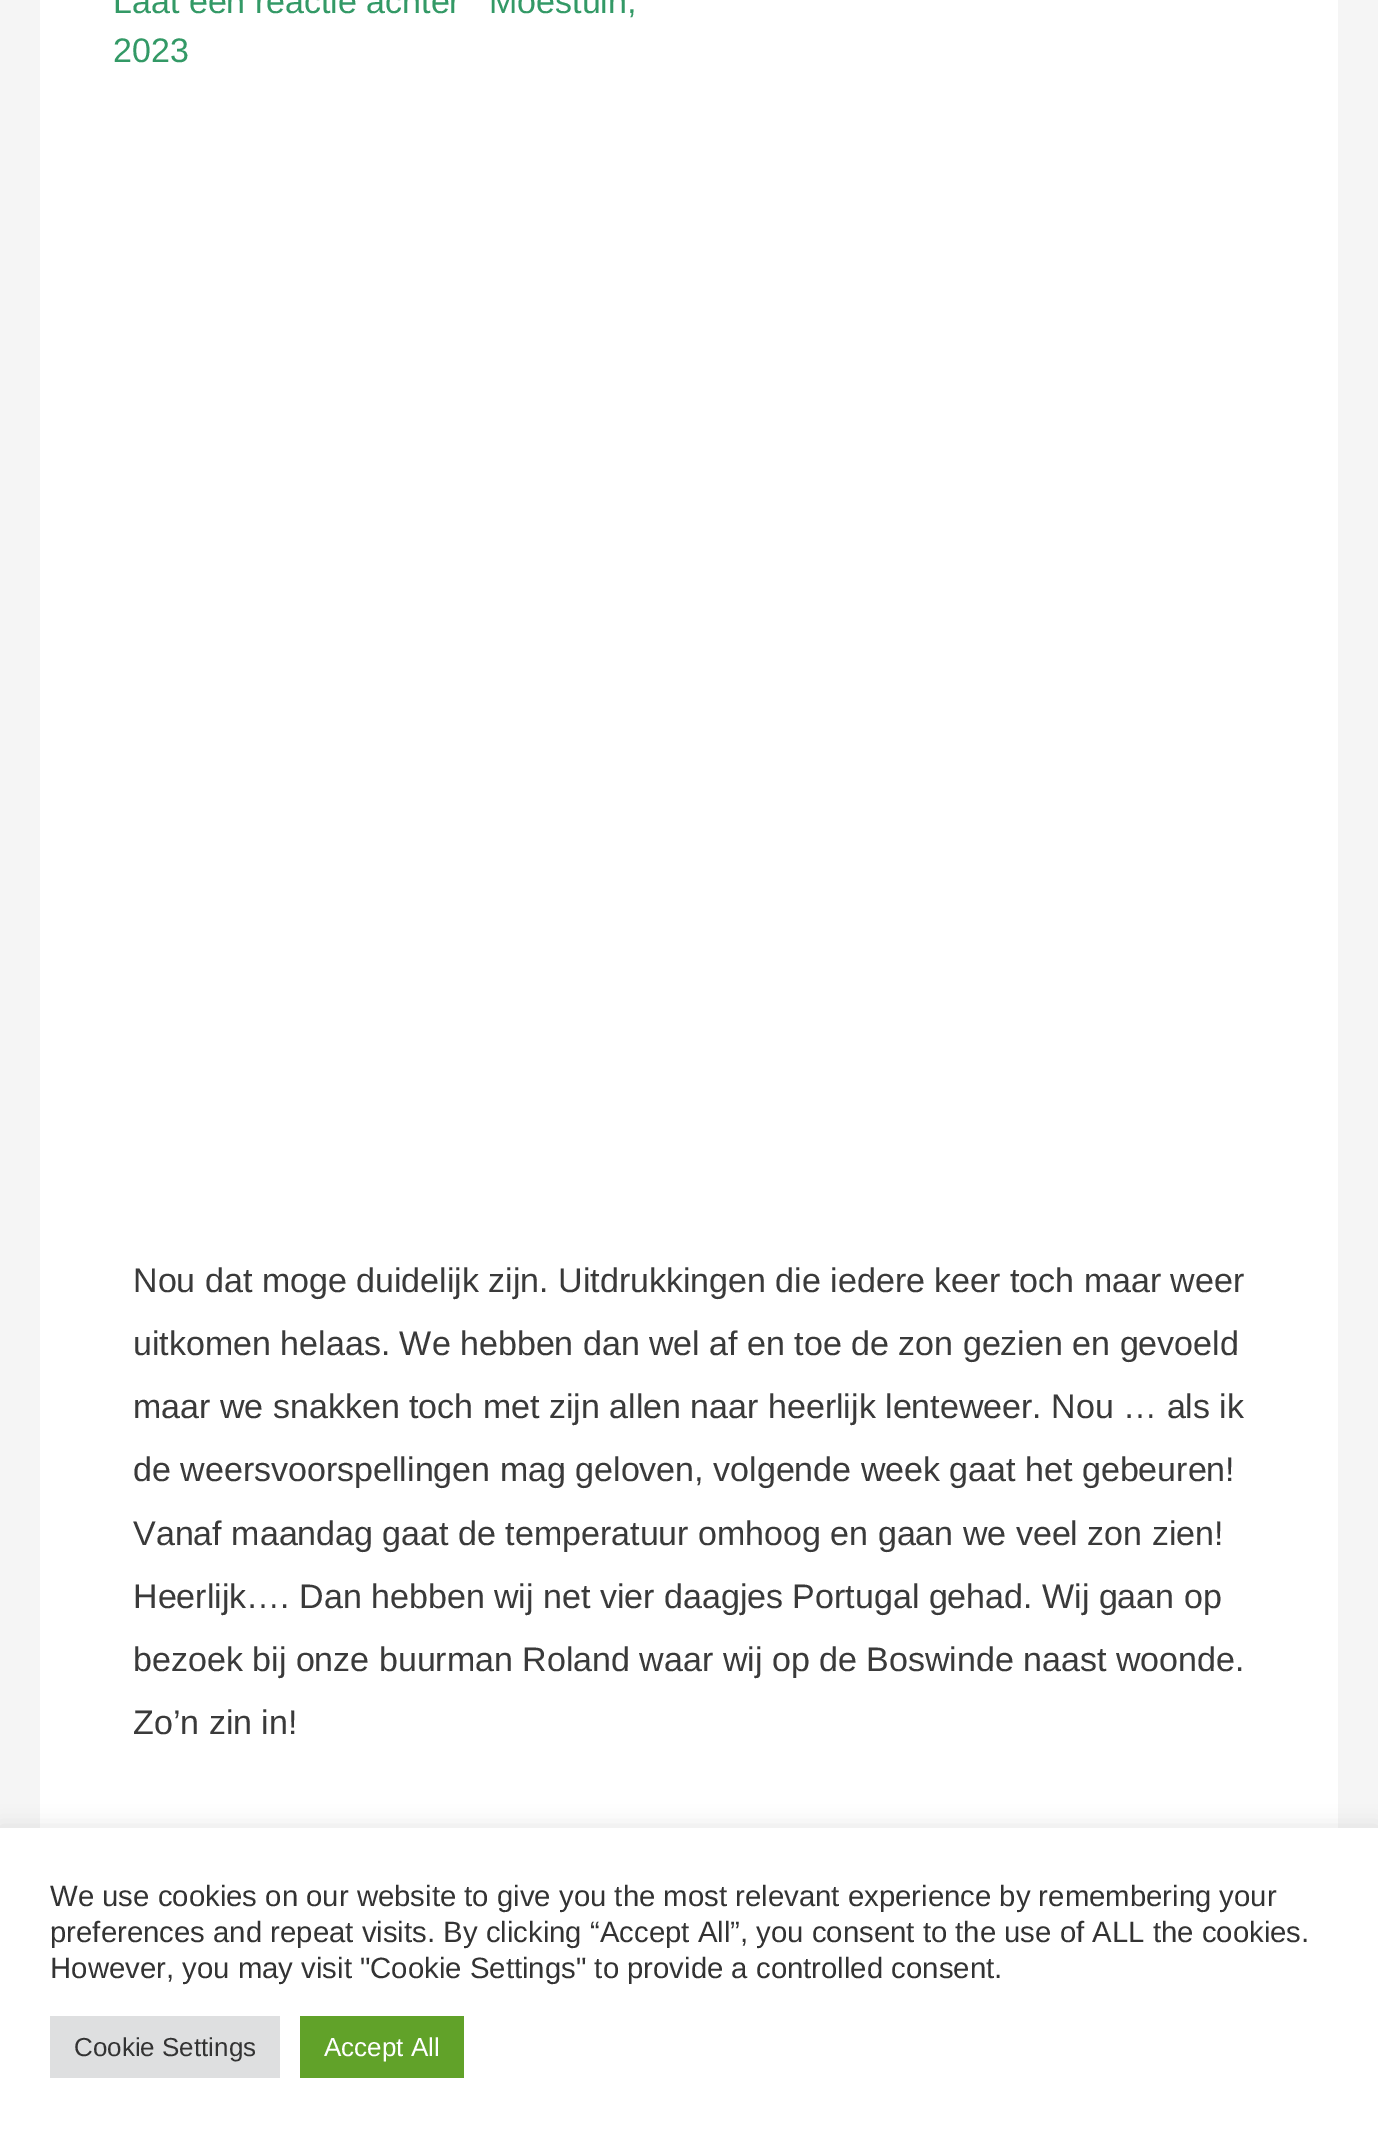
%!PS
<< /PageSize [1378 2137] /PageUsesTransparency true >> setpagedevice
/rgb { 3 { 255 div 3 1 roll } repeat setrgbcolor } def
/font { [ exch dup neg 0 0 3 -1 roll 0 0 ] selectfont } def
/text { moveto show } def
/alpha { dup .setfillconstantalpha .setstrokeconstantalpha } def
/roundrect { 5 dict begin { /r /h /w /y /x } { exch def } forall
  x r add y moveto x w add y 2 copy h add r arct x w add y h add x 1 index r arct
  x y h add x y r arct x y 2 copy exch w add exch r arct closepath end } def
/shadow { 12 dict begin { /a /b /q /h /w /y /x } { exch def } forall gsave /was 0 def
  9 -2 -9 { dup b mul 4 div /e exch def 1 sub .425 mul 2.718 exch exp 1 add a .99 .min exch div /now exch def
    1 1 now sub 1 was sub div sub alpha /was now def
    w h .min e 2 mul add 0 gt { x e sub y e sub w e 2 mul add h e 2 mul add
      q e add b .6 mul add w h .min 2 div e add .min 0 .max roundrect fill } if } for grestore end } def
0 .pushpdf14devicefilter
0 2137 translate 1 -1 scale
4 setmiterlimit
245 245 245 rgb
0 0 1378 2137 rectfill
255 255 255 rgb
40 0 1298 1828 rectfill
172 171 171 rgb
0 1826 1378 310 0 10 0.3 shadow
255 255 255 rgb
0 1828 1378 309 rectfill
222 223 224 rgb
50 2016 230 62 rectfill
97 162 41 rgb
300 2016 164 62 rectfill
/LiberationSans-Regular 34 font
51 153 102 rgb
(Laat een reactie achter) 113 13 text
(Moestuin,) 489 13 text
(2023) 113 62 text
58 58 58 rgb
(Nou dat moge duidelijk zijn. Uitdrukkingen die iedere keer toch maar weer) 133 1292 text
(uitkomen helaas. We hebben dan wel af en toe de zon gezien en gevoeld) 133 1355 text
(maar we snakken toch met zijn allen naar heerlijk lenteweer. Nou … als ik) 133 1418 text
(de weersvoorspellingen mag geloven, volgende week gaat het gebeuren!) 133 1481 text
(Vanaf maandag gaat de temperatuur omhoog en gaan we veel zon zien!) 133 1545 text
(Heerlijk…. Dan hebben wij net vier daagjes Portugal gehad. Wij gaan op) 133 1608 text
(bezoek bij onze buurman Roland waar wij op de Boswinde naast woonde.) 133 1671 text
(Zo’n zin in!) 133 1734 text
/LiberationSans-Regular 29.35 font
51 51 51 rgb
(We use cookies on our website to give you the most relevant experience by remembering your) 50 1906 text
(preferences and repeat visits. By clicking “Accept All”, you consent to the use of ALL the cookies.) 50 1942 text
(However, you may visit "Cookie Settings" to provide a controlled consent.) 50 1978 text
/LiberationSans-Regular 26 font
(Cookie Settings) 74 2056 text
255 255 255 rgb
(Accept All) 324 2056 text
.poppdf14devicefilter showpage
